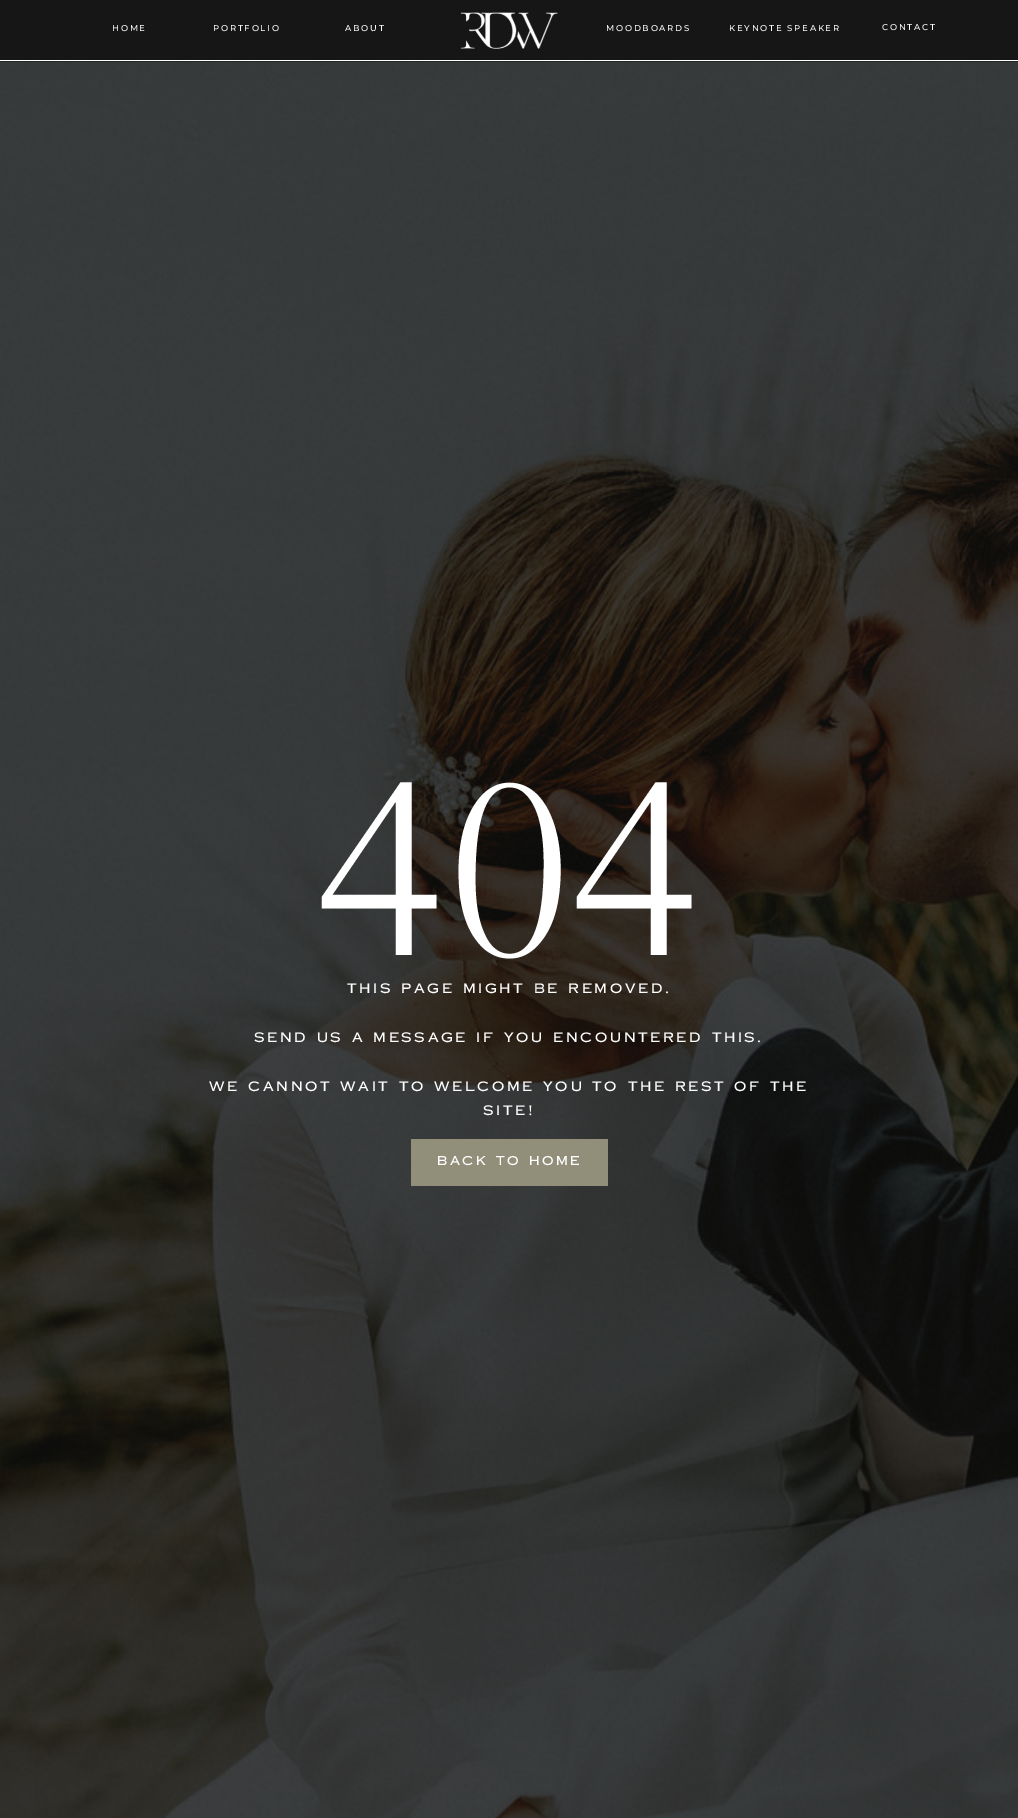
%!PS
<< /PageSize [1018 1818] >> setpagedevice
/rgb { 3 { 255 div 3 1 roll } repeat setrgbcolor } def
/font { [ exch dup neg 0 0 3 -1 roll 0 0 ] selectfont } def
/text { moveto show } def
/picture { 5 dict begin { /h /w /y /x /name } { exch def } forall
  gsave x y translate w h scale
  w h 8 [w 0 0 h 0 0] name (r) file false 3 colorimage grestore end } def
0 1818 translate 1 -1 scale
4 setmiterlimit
255 255 255 rgb
0 0 1018 1818 rectfill
22 22 22 rgb
0 0 1018 60 rectfill
(img_01.rgb) 460 12 98 37 picture
12 12 11 rgb
0 61 1018 1757 rectfill
(img_02.rgb) 0 61 1018 1757 picture
145 142 122 rgb
411 1139 197 47 rectfill
/Montserrat-Medium 8.5 font
255 255 255 rgb
112 31 moveto 1.75 0 (HOME) ashow
213 31 moveto 1.75 0 (PORTFOLIO) ashow
345 31 moveto 1.75 0 (ABOUT) ashow
606 31 moveto 1.75 0 (MOODBOARDS) ashow
729 31 moveto 1.75 0 (KEYNOTE SPEAKER) ashow
882 30 moveto 1.75 0 (CONTACT) ashow
/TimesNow-Light 255 font
(404) 318 955 text
/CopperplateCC-Regular 13.6 font
347 993 moveto 2.7 0 (THIS PAGE MIGHT BE REMOVED.) ashow
254 1042 moveto 2.7 0 (SEND US A MESSAGE IF YOU ENCOUNTERED THIS.) ashow
209 1091 moveto 2.7 0 (WE CANNOT WAIT TO WELCOME YOU TO THE REST OF THE) ashow
483 1115 moveto 2.7 0 (SITE!) ashow
/CopperplateCC-Regular 12.75 font
437 1165 moveto 2.5 0 (BACK TO HOME) ashow
showpage
